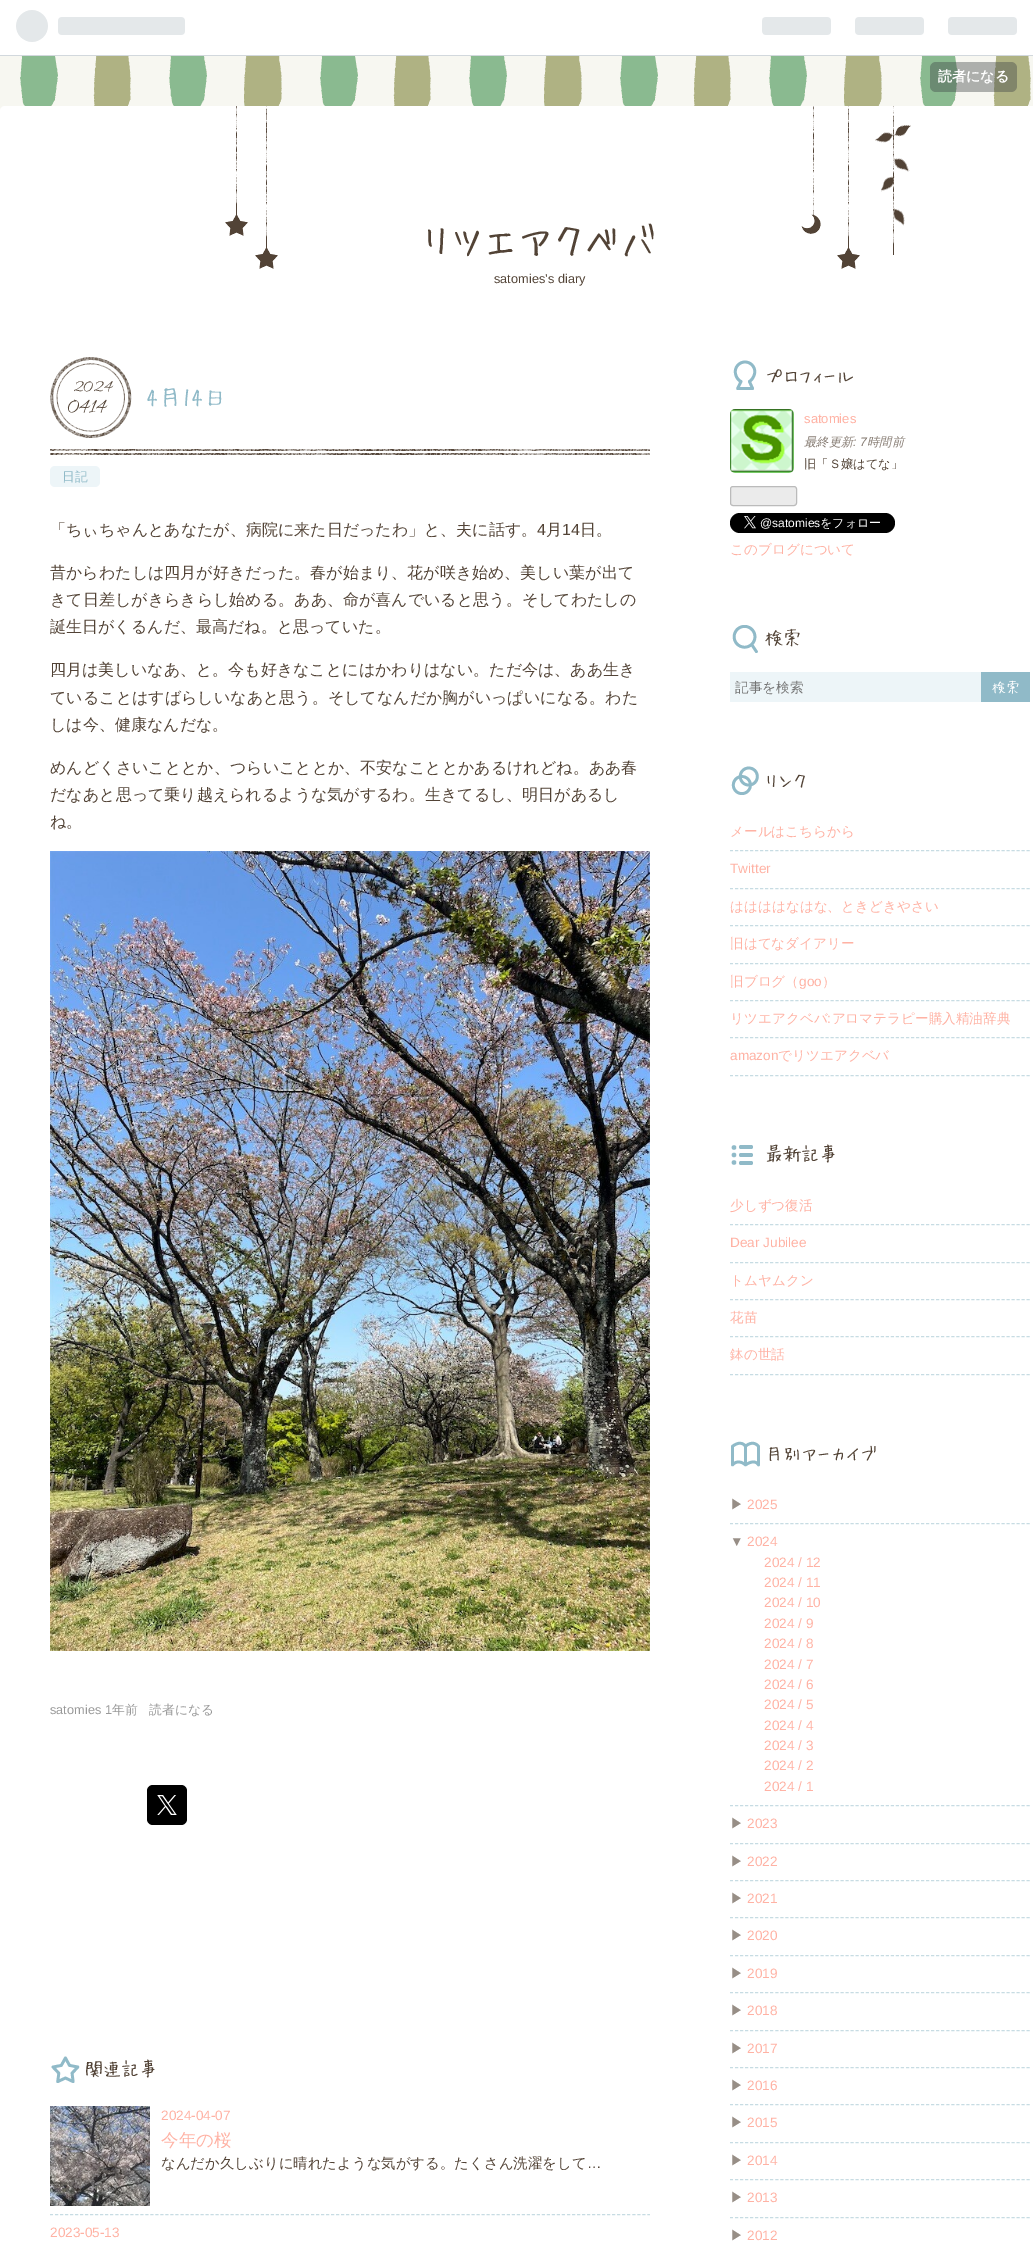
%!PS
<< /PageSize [1033 2246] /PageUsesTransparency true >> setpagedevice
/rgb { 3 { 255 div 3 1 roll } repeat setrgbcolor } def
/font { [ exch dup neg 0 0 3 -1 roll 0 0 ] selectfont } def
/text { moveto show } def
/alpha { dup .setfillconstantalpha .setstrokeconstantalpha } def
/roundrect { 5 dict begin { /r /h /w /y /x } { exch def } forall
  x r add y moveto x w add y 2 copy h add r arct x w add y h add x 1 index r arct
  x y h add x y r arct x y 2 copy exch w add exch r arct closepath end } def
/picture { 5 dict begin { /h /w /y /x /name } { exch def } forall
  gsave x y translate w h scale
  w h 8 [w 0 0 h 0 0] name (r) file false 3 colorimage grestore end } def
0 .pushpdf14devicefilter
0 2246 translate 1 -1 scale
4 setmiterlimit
255 255 255 rgb
0 0 1033 2246 rectfill
(img_01.rgb) 0 56 1033 55 picture
210 216 221 rgb
0 55 1033 1 rectfill
(img_02.rgb) 16 10 169 32 picture
(img_03.rgb) 762 17 255 18 picture
0.4 alpha
61 66 69 rgb
930 62 87 30 6 roundrect fill
1 alpha
255 255 255 rgb
0 106 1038 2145 5 roundrect fill
(img_04.rgb) 225 106 686 163 picture
(img_05.rgb) 50 357 82 81 picture
(img_06.rgb) 50 449 600 6 picture
237 245 248 rgb
50 466 50 21 5 roundrect fill
(img_07.rgb) 50 851 600 800 picture
0 0 0 rgb
147 1785 40 40 6 roundrect fill
(img_08.rgb) 157 1795 20 20 picture
(img_09.rgb) 51 2056 29 27 picture
199 220 227 rgb
[3 2.02] 0 setdash
50 2214.5 moveto 600 0 rlineto stroke
(img_10.rgb) 50 2106 100 100 picture
(img_11.rgb) 733 360 24 30 picture
(img_12.rgb) 730 409 64 64 picture
235 235 235 rgb
730.5 486.5 66 19 2.5 roundrect gsave fill grestore
187 187 187 rgb
[] 0 setdash
stroke
0 0 0 rgb
730 513 165 20 10 roundrect fill
(img_13.rgb) 744 516 12 13 picture
(img_14.rgb) 732 625 26 28 picture
237 245 248 rgb
730 672 251 30 rectfill
144 186 200 rgb
981 672 49 30 rectfill
(img_15.rgb) 731 766 28 29 picture
199 220 227 rgb
[3 2.03] 0 setdash
730 850.5 moveto 300 0 rlineto stroke
730 888.5 moveto 300 0 rlineto stroke
730 925.5 moveto 300 0 rlineto stroke
730 963.5 moveto 300 0 rlineto stroke
730 1000.5 moveto 300 0 rlineto stroke
730 1037.5 moveto 300 0 rlineto stroke
730 1075.5 moveto 300 0 rlineto stroke
(img_16.rgb) 731 1145 22 20 picture
730 1224.5 moveto 300 0 rlineto stroke
730 1262.5 moveto 300 0 rlineto stroke
730 1299.5 moveto 300 0 rlineto stroke
730 1336.5 moveto 300 0 rlineto stroke
730 1374.5 moveto 300 0 rlineto stroke
(img_17.rgb) 731 1441 29 26 picture
730 1523.5 moveto 300 0 rlineto stroke
730 1805.5 moveto 300 0 rlineto stroke
730 1843.5 moveto 300 0 rlineto stroke
730 1880.5 moveto 300 0 rlineto stroke
730 1917.5 moveto 300 0 rlineto stroke
730 1955.5 moveto 300 0 rlineto stroke
730 1992.5 moveto 300 0 rlineto stroke
730 2030.5 moveto 300 0 rlineto stroke
730 2067.5 moveto 300 0 rlineto stroke
730 2104.5 moveto 300 0 rlineto stroke
730 2142.5 moveto 300 0 rlineto stroke
730 2179.5 moveto 300 0 rlineto stroke
730 2217.5 moveto 300 0 rlineto stroke
/WenQuanYiZenHei-Bold 14 font
255 255 255 rgb
(読者になる) 938 81 text
/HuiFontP-Regular 40 font
82 67 54 rgb
(リツエアクベバ) 422 252 text
/LiberationSans-Regular 12.75 font
(satomies’s diary) 494 283 text
/Allura-Regular 18 font
(2024) 73 391 text
/Allura-Regular 22 font
(0414) 67 412 text
/HuiFontP-Regular 24 font
144 186 200 rgb
(4月14日) 146 404 text
/WenQuanYiZenHei-Medium 12.75 font
(日記) 62 481 text
/WenQuanYiZenHei-Medium 16 font
82 67 54 rgb
(「ちぃちゃんとあなたが、病院に来た日だったわ」と、夫に話す。) 50 535 text
/LiberationSans-Regular 16 font
(4) 537 535 text
/WenQuanYiZenHei-Medium 16 font
(月) 546 535 text
/LiberationSans-Regular 16 font
(14) 562 535 text
/WenQuanYiZenHei-Medium 16 font
(日。) 580 535 text
(昔からわたしは四月が好きだった。春が始まり、花が咲き始め、美しい葉が出て) 50 578 text
(きて日差しがきらきらし始める。ああ、命が喜んでいると思う。そしてわたしの) 50 605 text
(誕生日がくるんだ、最高だね。と思っていた。) 50 632 text
(四月は美しいなあ、と。今も好きなことにはかわりはない。ただ今は、ああ生き) 50 675 text
(ていることはすばらしいなあと思う。そしてなんだか胸がいっぱいになる。わた) 50 703 text
(しは今、健康なんだな。) 50 730 text
(めんどくさいこととか、つらいこととか、不安なこととかあるけれどね。ああ春) 50 773 text
(だなあと思って乗り越えられるような気がするわ。生きてるし、明日があるし) 50 800 text
(ね。) 50 827 text
/LiberationSans-Regular 12.75 font
153 153 153 rgb
(satomies 1) 50 1714 text
/WenQuanYiZenHei-Medium 12.75 font
(年前) 112 1714 text
(読者になる) 149 1714 text
/HuiFontP-Regular 18 font
82 67 54 rgb
(関連記事) 85 2075 text
/LiberationSans-Regular 13.6 font
255 178 164 rgb
(2024-04-07) 161 2120 text
/WenQuanYiZenHei-Medium 17.5 font
(今年の桜) 161 2146 text
/WenQuanYiZenHei-Medium 14.4 font
82 67 54 rgb
(なんだか久しぶりに晴れたような気がする。たくさん洗濯をして) 161 2168 text
/LiberationSans-Regular 14.4 font
(…) 587 2168 text
/LiberationSans-Regular 13.6 font
255 178 164 rgb
(2023-05-13) 50 2237 text
/HuiFontP-Regular 18 font
82 67 54 rgb
(プロフィール) 765 381 text
/LiberationSans-Regular 13 font
255 178 164 rgb
(satomies) 804 423 text
/WenQuanYiZenHei-MediumItalic 12.25 font
134 123 114 rgb
(最終更新) 804 446 text
/LiberationSans-Italic 12.25 font
(: 7) 853 446 text
/WenQuanYiZenHei-MediumItalic 12.25 font
(時間前) 867 446 text
/WenQuanYiZenHei-Medium 12.25 font
82 67 54 rgb
(旧「Ｓ嬢はてな」) 804 468 text
/LiberationSans-Regular 12 font
255 255 255 rgb
(@satomies) 760 527 text
/WenQuanYiZenHei-Medium 12 font
(をフォロー) 820 527 text
/WenQuanYiZenHei-Medium 13.6 font
255 178 164 rgb
(このブログについて) 730 554 text
/HuiFontP-Regular 18 font
82 67 54 rgb
(検索) 765 644 text
/WenQuanYiZenHei-Medium 13.6 font
117 117 117 rgb
(記事を検索) 735 692 text
/HuiFontP-Regular 13.6 font
255 255 255 rgb
(検索) 992 692 text
/HuiFontP-Regular 18 font
82 67 54 rgb
(リンク) 765 786 text
/WenQuanYiZenHei-Medium 13.6 font
255 178 164 rgb
(メールはこちらから) 730 836 text
/LiberationSans-Regular 13.6 font
(Twitter) 730 873 text
/WenQuanYiZenHei-Medium 13.6 font
(ははははなはな、ときどきやさい) 730 911 text
(旧はてなダイアリー) 730 948 text
(旧ブログ（) 730 986 text
/LiberationSans-Regular 13.6 font
(goo) 799 986 text
/WenQuanYiZenHei-Medium 13.6 font
(）) 822 986 text
(リツエアクベバ アロマテラピー購入精油辞典) 730 1023 text
/LiberationSans-Regular 13.6 font
(:) 827 1023 text
(amazon) 730 1060 text
/WenQuanYiZenHei-Medium 13.6 font
(でリツエアクベバ) 778 1060 text
/HuiFontP-Regular 18 font
82 67 54 rgb
(最新記事) 765 1160 text
/WenQuanYiZenHei-Medium 13.6 font
255 178 164 rgb
(少しずつ復活) 730 1210 text
/LiberationSans-Regular 13.6 font
(Dear Jubilee) 730 1247 text
/WenQuanYiZenHei-Medium 13.6 font
(トムヤムクン) 730 1285 text
(花苗) 730 1322 text
(鉢の世話) 730 1359 text
/HuiFontP-Regular 18 font
82 67 54 rgb
(月別アーカイブ) 765 1459 text
/WenQuanYiZenHei-Medium 13.6 font
151 142 134 rgb
(▶) 730 1509 text
/LiberationSans-Regular 13.6 font
255 178 164 rgb
(2025) 747 1509 text
151 142 134 rgb
(▼) 730 1546 text
255 178 164 rgb
(2024) 747 1546 text
(2024 / 12) 764 1567 text
(2024 / 11) 764 1587 text
(2024 / 10) 764 1607 text
(2024 / 9) 764 1628 text
(2024 / 8) 764 1648 text
(2024 / 7) 764 1669 text
(2024 / 6) 764 1689 text
(2024 / 5) 764 1709 text
(2024 / 4) 764 1730 text
(2024 / 3) 764 1750 text
(2024 / 2) 764 1770 text
(2024 / 1) 764 1791 text
/WenQuanYiZenHei-Medium 13.6 font
151 142 134 rgb
(▶) 730 1828 text
/LiberationSans-Regular 13.6 font
255 178 164 rgb
(2023) 747 1828 text
/WenQuanYiZenHei-Medium 13.6 font
151 142 134 rgb
(▶) 730 1866 text
/LiberationSans-Regular 13.6 font
255 178 164 rgb
(2022) 747 1866 text
/WenQuanYiZenHei-Medium 13.6 font
151 142 134 rgb
(▶) 730 1903 text
/LiberationSans-Regular 13.6 font
255 178 164 rgb
(2021) 747 1903 text
/WenQuanYiZenHei-Medium 13.6 font
151 142 134 rgb
(▶) 730 1940 text
/LiberationSans-Regular 13.6 font
255 178 164 rgb
(2020) 747 1940 text
/WenQuanYiZenHei-Medium 13.6 font
151 142 134 rgb
(▶) 730 1978 text
/LiberationSans-Regular 13.6 font
255 178 164 rgb
(2019) 747 1978 text
/WenQuanYiZenHei-Medium 13.6 font
151 142 134 rgb
(▶) 730 2015 text
/LiberationSans-Regular 13.6 font
255 178 164 rgb
(2018) 747 2015 text
/WenQuanYiZenHei-Medium 13.6 font
151 142 134 rgb
(▶) 730 2053 text
/LiberationSans-Regular 13.6 font
255 178 164 rgb
(2017) 747 2053 text
/WenQuanYiZenHei-Medium 13.6 font
151 142 134 rgb
(▶) 730 2090 text
/LiberationSans-Regular 13.6 font
255 178 164 rgb
(2016) 747 2090 text
/WenQuanYiZenHei-Medium 13.6 font
151 142 134 rgb
(▶) 730 2127 text
/LiberationSans-Regular 13.6 font
255 178 164 rgb
(2015) 747 2127 text
/WenQuanYiZenHei-Medium 13.6 font
151 142 134 rgb
(▶) 730 2165 text
/LiberationSans-Regular 13.6 font
255 178 164 rgb
(2014) 747 2165 text
/WenQuanYiZenHei-Medium 13.6 font
151 142 134 rgb
(▶) 730 2202 text
/LiberationSans-Regular 13.6 font
255 178 164 rgb
(2013) 747 2202 text
/WenQuanYiZenHei-Medium 13.6 font
151 142 134 rgb
(▶) 730 2240 text
/LiberationSans-Regular 13.6 font
255 178 164 rgb
(2012) 747 2240 text
.poppdf14devicefilter showpage
